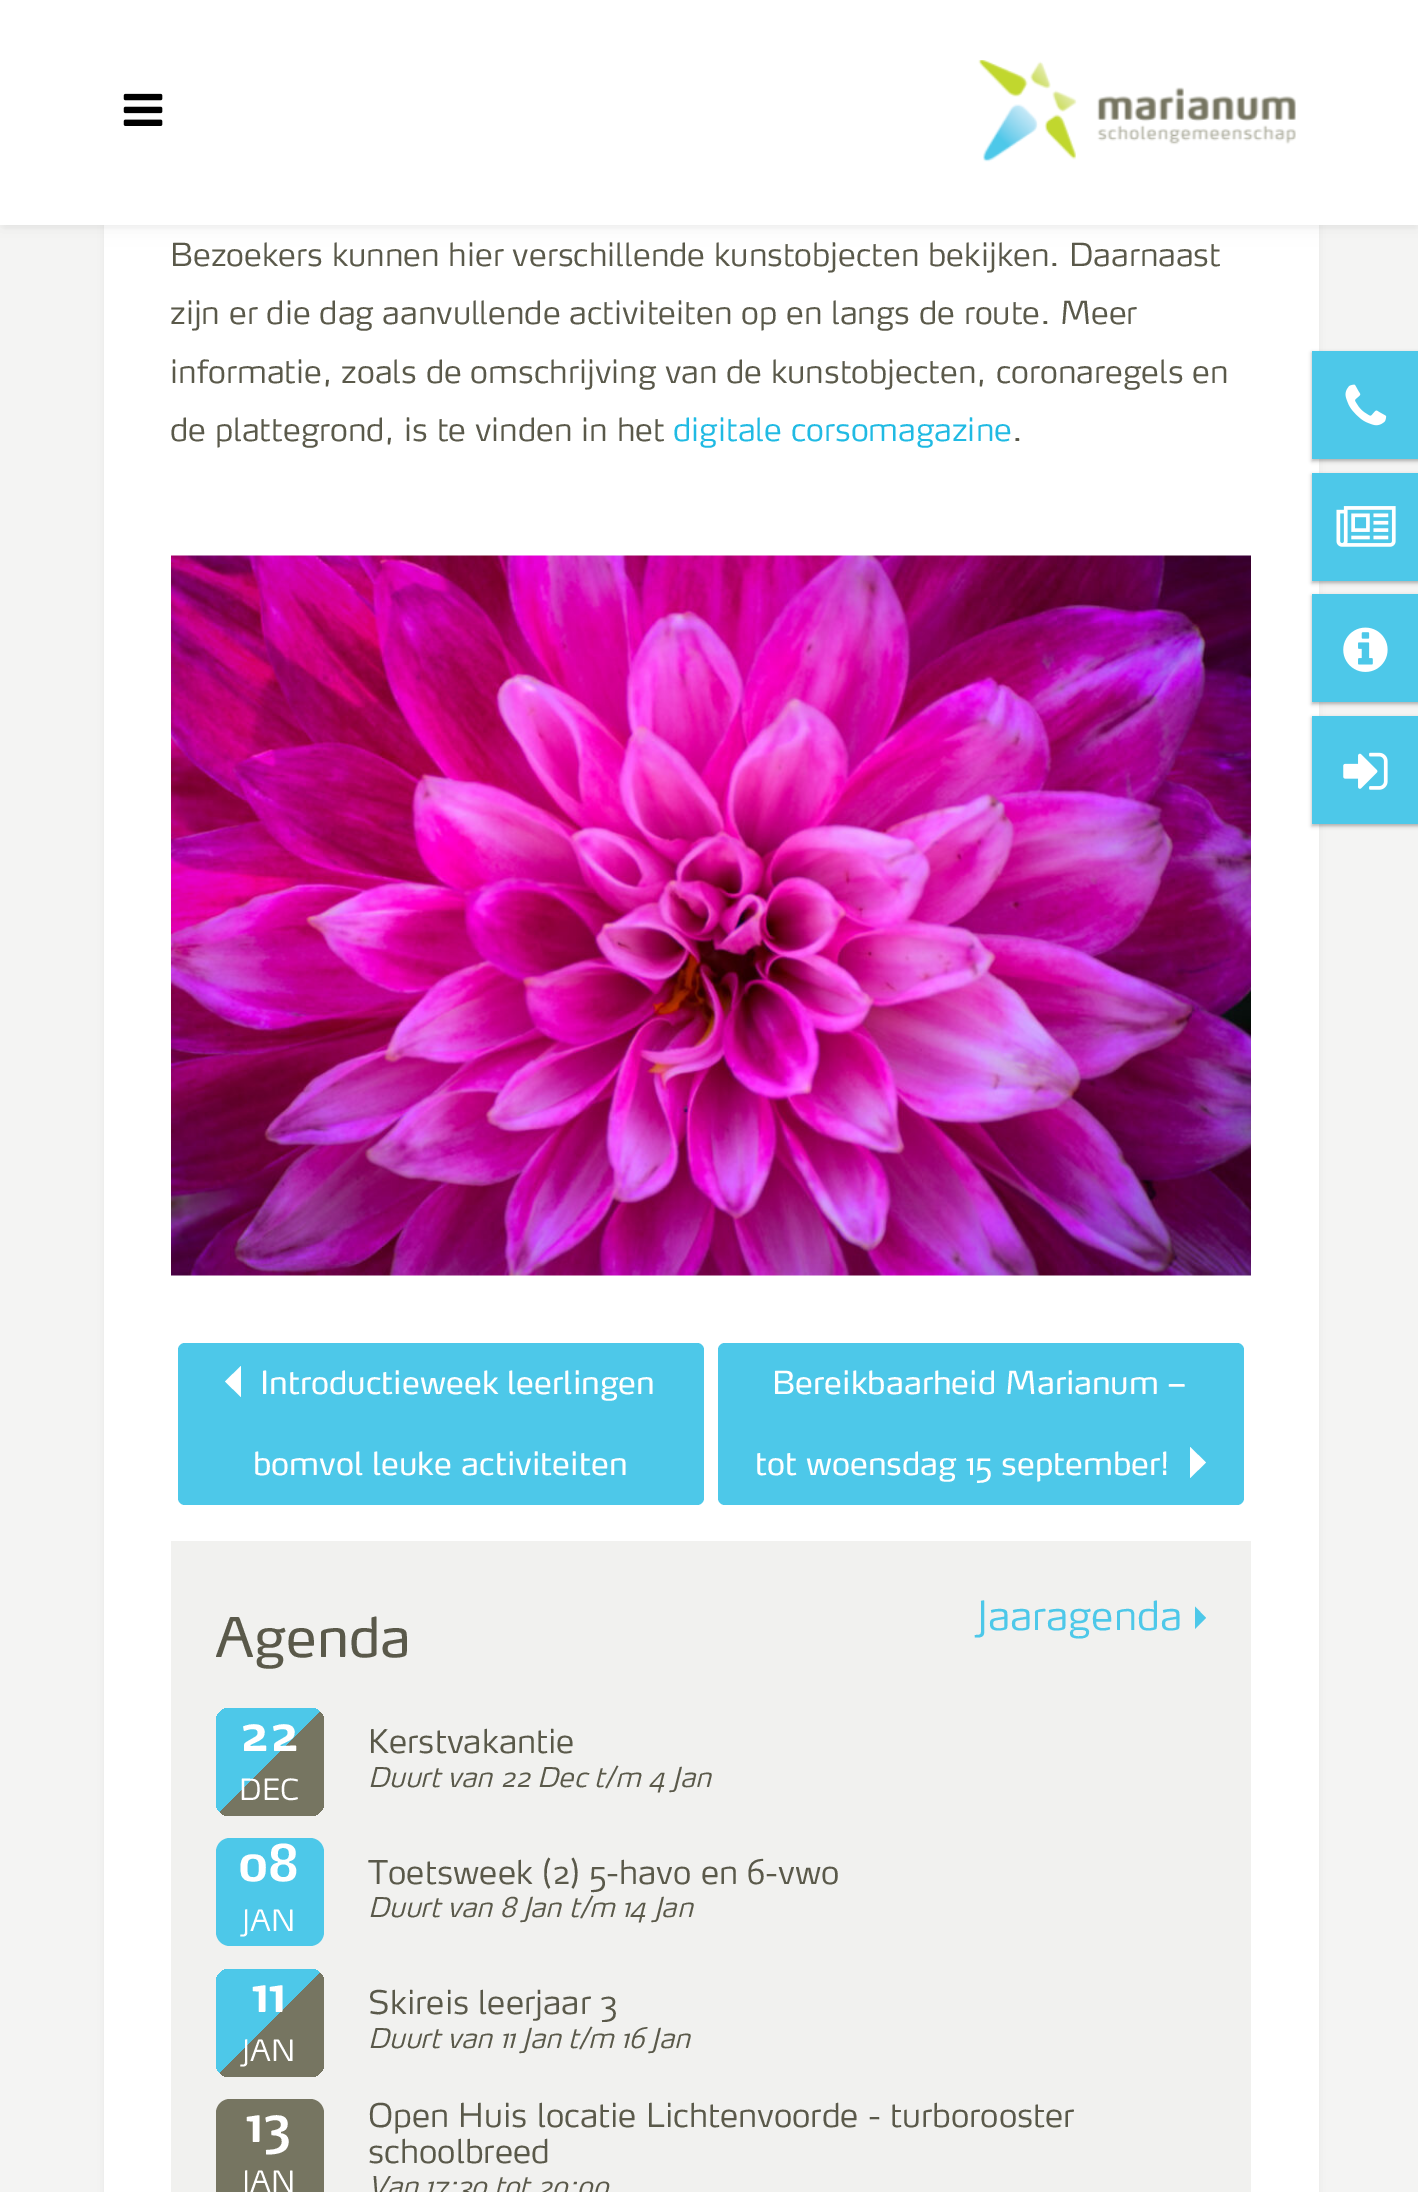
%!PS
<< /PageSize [1418 2192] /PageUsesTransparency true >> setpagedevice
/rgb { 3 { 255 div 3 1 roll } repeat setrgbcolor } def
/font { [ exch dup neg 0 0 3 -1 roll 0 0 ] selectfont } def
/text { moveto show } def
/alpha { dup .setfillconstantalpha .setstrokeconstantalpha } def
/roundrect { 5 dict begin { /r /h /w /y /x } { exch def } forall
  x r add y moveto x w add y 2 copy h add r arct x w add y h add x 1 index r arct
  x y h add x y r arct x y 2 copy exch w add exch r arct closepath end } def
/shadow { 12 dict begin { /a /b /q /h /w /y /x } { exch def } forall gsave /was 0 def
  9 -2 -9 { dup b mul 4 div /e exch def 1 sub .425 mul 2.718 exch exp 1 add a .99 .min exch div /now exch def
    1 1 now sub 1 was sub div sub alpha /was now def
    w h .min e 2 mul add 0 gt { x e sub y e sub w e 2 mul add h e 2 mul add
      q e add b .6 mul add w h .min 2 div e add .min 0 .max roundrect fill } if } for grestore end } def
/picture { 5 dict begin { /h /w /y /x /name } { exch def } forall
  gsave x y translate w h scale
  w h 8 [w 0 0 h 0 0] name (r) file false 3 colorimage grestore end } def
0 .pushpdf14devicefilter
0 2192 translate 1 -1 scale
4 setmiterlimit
244 244 243 rgb
0 0 1418 2192 rectfill
127 127 127 rgb
104 -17 1215 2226 0 5.5 0.12 shadow
255 255 255 rgb
104 225 1215 1967 rectfill
127 127 127 rgb
0 2 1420 225 0 9 0.12 shadow
5 11 1410 216 0 3.5 0.1 shadow
255 255 255 rgb
0 0 1418 225 rectfill
(img_01.rgb) 123 93 40 33 picture
(img_02.rgb) 978 60 318 102 picture
(img_03.rgb) 171 555 1080 721 picture
77 200 233 rgb
178 1343 526 162 7 roundrect fill
255 255 255 rgb
241 1366 moveto 0 31 rlineto -16 -15.5 rlineto closepath fill
77 200 233 rgb
718 1343 526 162 7 roundrect fill
255 255 255 rgb
1190 1478 moveto 0 -31 rlineto 16 15.5 rlineto closepath fill
241 241 239 rgb
171 1541 1080 651 rectfill
77 200 233 rgb
1195 1629 moveto 0 -22.5 rlineto 11 11.5 rlineto closepath fill
gsave 216 1708 108 108 14 roundrect clip newpath
<< /ShadingType 2 /ColorSpace /DeviceRGB /Coords [216 1708 324 1816] /Extend [true true] /Function << /FunctionType 3 /Domain [0 1] /Functions [<< /FunctionType 2 /Domain [0 1] /C0 [0.302 0.784 0.914] /C1 [0.302 0.784 0.914] /N 1 >> << /FunctionType 2 /Domain [0 1] /C0 [0.463 0.459 0.38] /C1 [0.463 0.459 0.38] /N 1 >>] /Bounds [0.5] /Encode [0 1 0 1] >> >> shfill grestore
216 1838 108 108 14 roundrect fill
gsave 216 1969 108 108 14 roundrect clip newpath
<< /ShadingType 2 /ColorSpace /DeviceRGB /Coords [216 1969 324 2077] /Extend [true true] /Function << /FunctionType 3 /Domain [0 1] /Functions [<< /FunctionType 2 /Domain [0 1] /C0 [0.302 0.784 0.914] /C1 [0.302 0.784 0.914] /N 1 >> << /FunctionType 2 /Domain [0 1] /C0 [0.463 0.459 0.38] /C1 [0.463 0.459 0.38] /N 1 >>] /Bounds [0.5] /Encode [0 1 0 1] >> >> shfill grestore
118 117 97 rgb
216 2099 108 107 14 roundrect fill
0 0 0 rgb
1312 353 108 108 0 2 0.3 shadow
77 200 233 rgb
1312 351 106 108 rectfill
(img_04.rgb) 1345 384 42 42 picture
0 0 0 rgb
1312 475 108 108 0 2 0.3 shadow
77 200 233 rgb
1312 473 106 108 rectfill
(img_05.rgb) 1336 506 60 41 picture
0 0 0 rgb
1312 596 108 108 0 2 0.3 shadow
77 200 233 rgb
1312 594 106 108 rectfill
(img_06.rgb) 1343 627 45 45 picture
0 0 0 rgb
1312 718 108 108 0 2 0.3 shadow
77 200 233 rgb
1312 716 106 108 rectfill
(img_07.rgb) 1343 752 45 38 picture
/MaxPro-Light 31.5 font
90 89 74 rgb
(Bezoekers kunnen hier verschillende kunstobjecten bekijken. Daarnaast) 170 266 text
(zijn er die dag aanvullende activiteiten op en langs de route. Meer) 170 324 text
(informatie, zoals de omschrijving van de kunstobjecten, coronaregels en) 170 383 text
(de plattegrond, is te vinden in het) 170 441 text
32 186 227 rgb
(digitale corsomagazine) 673 441 text
90 89 74 rgb
(.) 1012 441 text
/MaxPro-Regular 31.5 font
255 255 255 rgb
(Introductieweek leerlingen) 260 1394 text
(bomvol leuke activiteiten) 253 1475 text
(Bereikbaarheid Marianum –) 772 1394 text
(tot woensdag 15 september!) 755 1475 text
/MaxPro-Regular 54 font
90 89 74 rgb
(Agenda) 215 1657 text
/MaxPro-Light 39.5 font
77 200 233 rgb
(Jaaragenda) 977 1630 text
/MaxPro-SemiBold 50 font
255 255 255 rgb
(22) 239 1751 text
/MaxPro-Light 29 font
(DEC) 239 1800 text
/MaxPro-Light 32.4 font
90 89 74 rgb
(Kerstvakantie) 368 1753 text
/MaxPro-LightItalic 27 font
(Duurt van 22 Dec t/m 4 Jan) 368 1787 text
/MaxPro-SemiBold 50 font
255 255 255 rgb
(08) 238 1881 text
/MaxPro-Light 29 font
(JAN) 242 1931 text
/MaxPro-Light 32.4 font
90 89 74 rgb
(Toetsweek \(2\) 5-havo en 6-vwo) 368 1884 text
/MaxPro-LightItalic 27 font
(Duurt van 8 Jan t/m 14 Jan) 368 1917 text
/MaxPro-SemiBold 50 font
255 255 255 rgb
(11) 252 2012 text
/MaxPro-Light 29 font
(JAN) 242 2061 text
/MaxPro-Light 32.4 font
90 89 74 rgb
(Skireis leerjaar 3) 368 2014 text
/MaxPro-LightItalic 27 font
(Duurt van 11 Jan t/m 16 Jan) 368 2048 text
/MaxPro-SemiBold 50 font
255 255 255 rgb
(13) 246 2142 text
/MaxPro-Light 29 font
(JAN) 242 2192 text
/MaxPro-Light 32.4 font
90 89 74 rgb
(Open Huis locatie Lichtenvoorde - turborooster) 368 2127 text
(schoolbreed) 368 2163 text
/MaxPro-LightItalic 27 font
(Van 17:30 tot 20:00) 368 2196 text
.poppdf14devicefilter showpage
